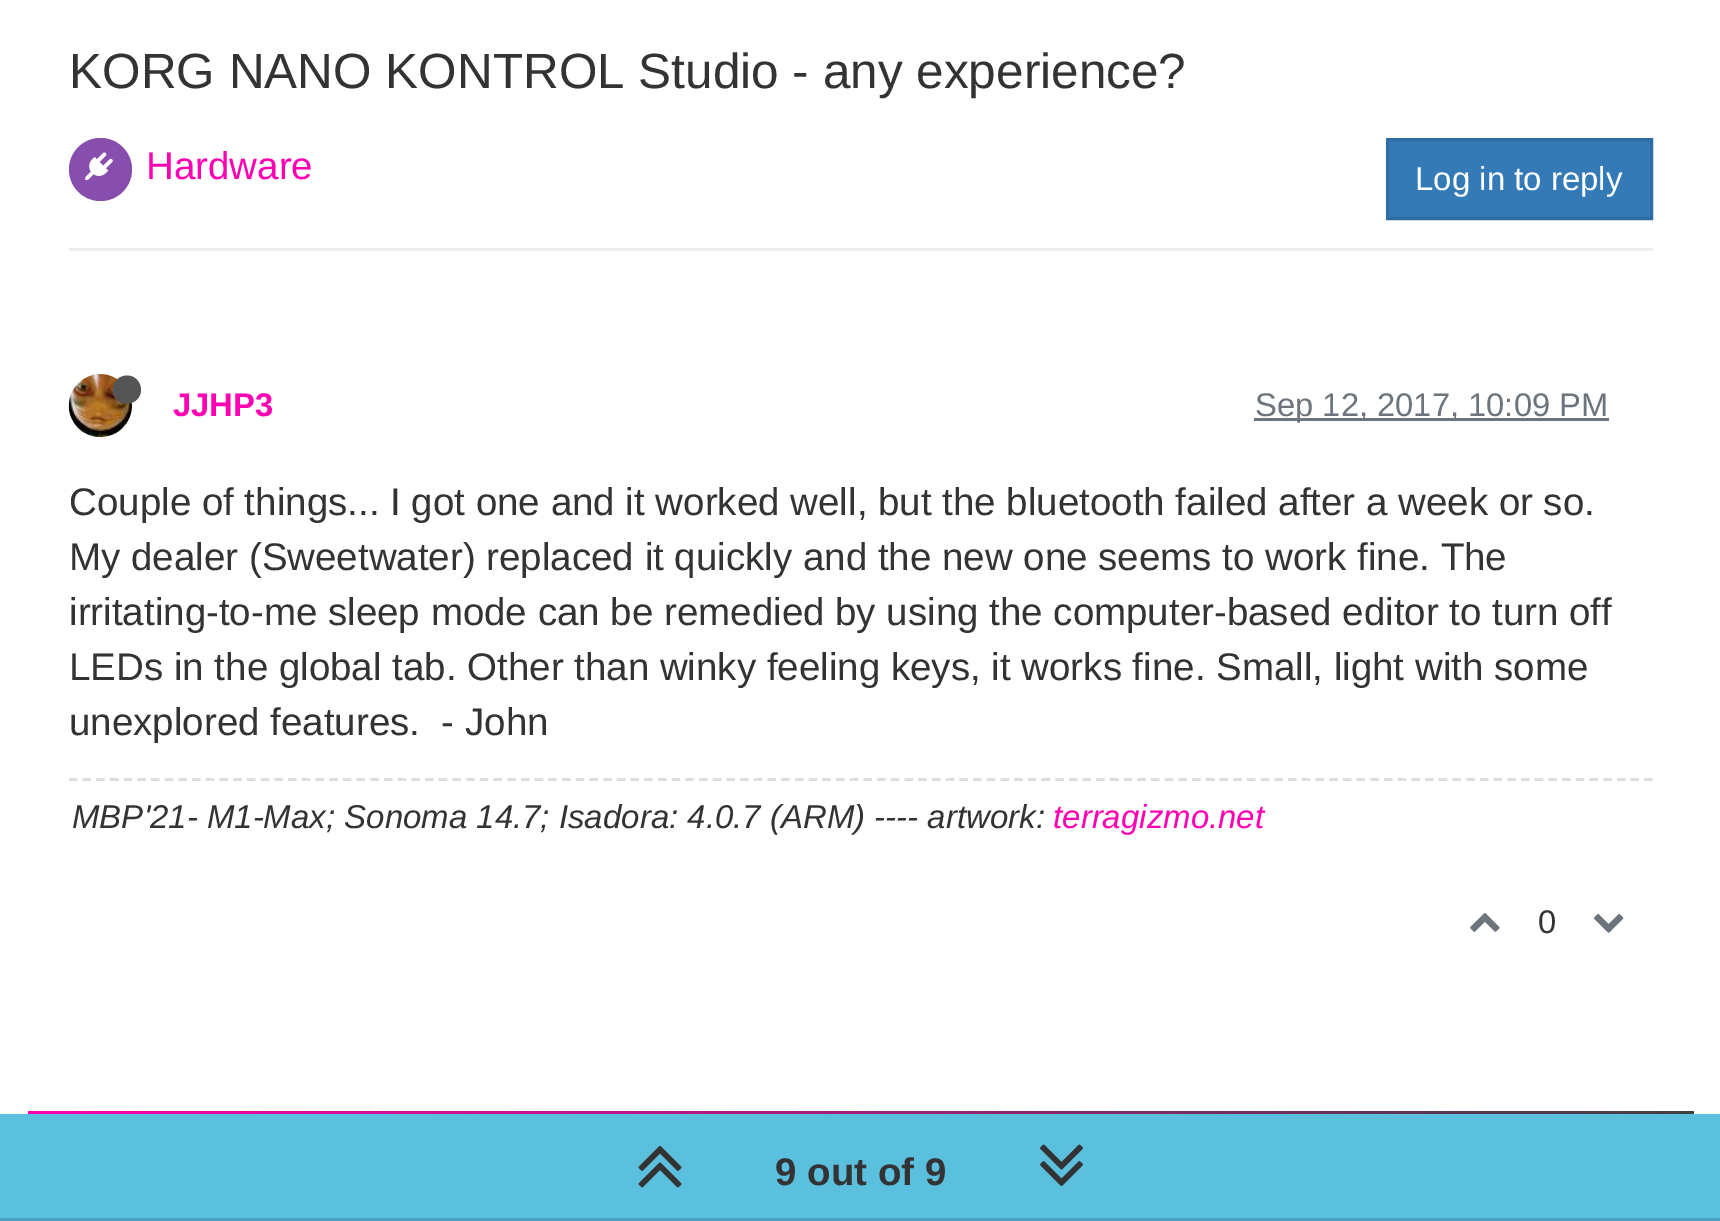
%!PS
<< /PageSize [1720 1221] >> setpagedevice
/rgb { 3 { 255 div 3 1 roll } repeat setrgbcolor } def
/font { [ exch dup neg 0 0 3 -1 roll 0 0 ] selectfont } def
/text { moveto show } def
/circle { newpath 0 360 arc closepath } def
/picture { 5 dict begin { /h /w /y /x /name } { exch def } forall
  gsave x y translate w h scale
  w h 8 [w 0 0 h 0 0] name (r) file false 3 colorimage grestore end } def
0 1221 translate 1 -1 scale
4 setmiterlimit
255 255 255 rgb
0 0 1720 1221 rectfill
gsave 28 1111 moveto 1666 0 rlineto 0 3 rlineto -1666 0 rlineto closepath clip newpath
<< /ShadingType 2 /ColorSpace /DeviceRGB /Coords [0 -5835 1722 -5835] /Extend [true true] /Function << /FunctionType 2 /Domain [0 1] /C0 [1 0 0.698] /C1 [0.251 0.251 0.251] /N 1 >> >> shfill grestore
238 238 238 rgb
69 248 1584 3 rectfill
135 78 173 rgb
100.5 169.5 31.5 circle fill
(img_01.rgb) 85 152 28 28 picture
51 122 183 rgb
1387.5 139.5 moveto 264 0 rlineto 0 79 rlineto -264 0 rlineto closepath gsave fill grestore
46 109 164 rgb
3 setlinewidth
stroke
(img_02.rgb) 68 374 64 64 picture
85 85 85 rgb
139 382.5 moveto 1.5 2.5 2 5.5 2 8 rcurveto -1 14 -19.5 18 -26.5 6.5 rcurveto -1.5 -2.5 -2 -5.5 -1.5 -8 rcurveto 0.5 -14 19 -18.5 26 -6.5 rcurveto closepath fill
108 117 125 rgb
1254 418 355 3 rectfill
222 222 222 rgb
2.8 setlinewidth
[8.25 5.45] 0 setdash
69 779.5 moveto 1584 0 rlineto stroke
(img_03.rgb) 1470 913 30 19 picture
(img_04.rgb) 1593 914 31 19 picture
91 192 222 rgb
0 1114 1720 104 rectfill
77 163 189 rgb
0 1218 1720 3 rectfill
(img_05.rgb) 638 1146 44 42 picture
(img_06.rgb) 1040 1144 43 42 picture
/LiberationSans-Regular 49.5 font
51 51 51 rgb
(KORG NANO KONTROL Studio - any experience?) 69 88 text
/LiberationSans-Regular 38.5 font
255 0 178 rgb
(Hardware) 146 179 text
/LiberationSans-Regular 33 font
255 255 255 rgb
(Log in to reply) 1415 190 text
/LiberationSans-Bold 32.75 font
255 0 178 rgb
(JJHP3) 173 416 text
/LiberationSans-Regular 32.75 font
108 117 125 rgb
(Sep 12, 2017, 10:09 PM) 1255 416 text
/LiberationSans-Regular 38.5 font
51 51 51 rgb
(Couple of things... I got one and it worked well, but the bluetooth failed after a week or so.) 69 515 text
(My dealer \(Sweetwater\) replaced it quickly and the new one seems to work fine. The) 69 570 text
(irritating-to-me sleep mode can be remedied by using the computer-based editor to turn off) 69 625 text
(LEDs in the global tab. Other than winky feeling keys, it works fine. Small, light with some) 69 680 text
(unexplored features.  - John) 69 735 text
/LiberationSans-Italic 33 font
(MBP'21- M1-Max; Sonoma 14.7; Isadora: 4.0.7 \(ARM\) ---- artwork:) 72 828 text
255 0 178 rgb
(terragizmo.net) 1053 828 text
/LiberationSans-Regular 32.75 font
51 51 51 rgb
(0) 1538 933 text
/LiberationSans-Bold 38.5 font
(9 out of 9) 775 1185 text
showpage
